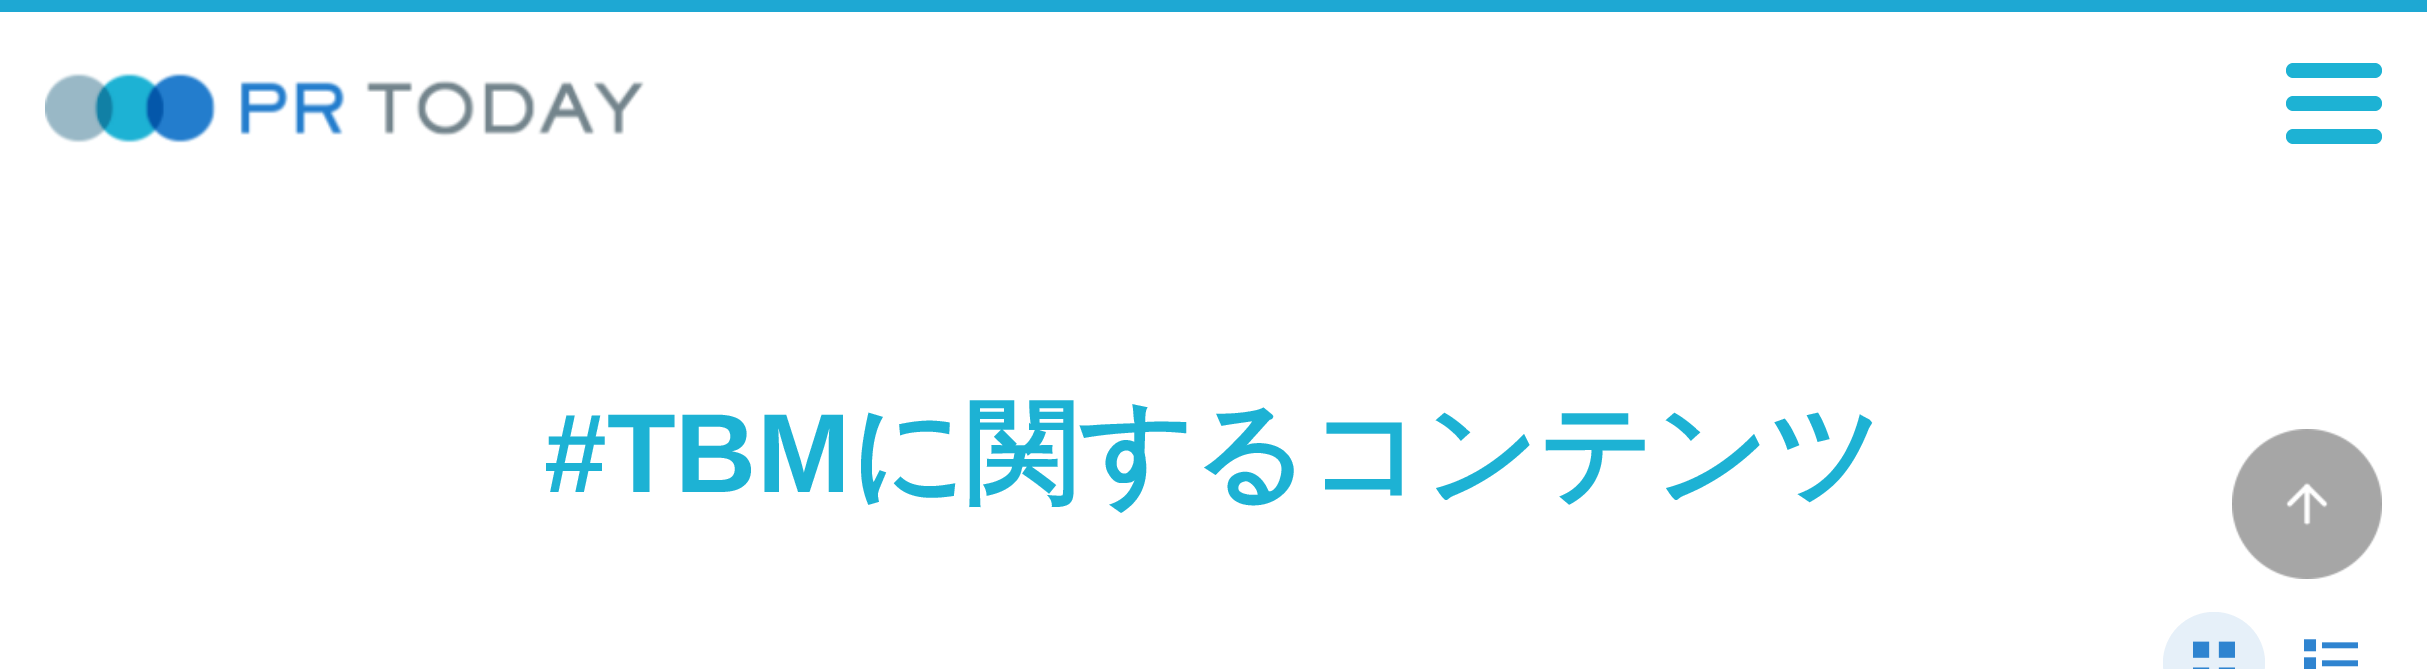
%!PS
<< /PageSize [2427 669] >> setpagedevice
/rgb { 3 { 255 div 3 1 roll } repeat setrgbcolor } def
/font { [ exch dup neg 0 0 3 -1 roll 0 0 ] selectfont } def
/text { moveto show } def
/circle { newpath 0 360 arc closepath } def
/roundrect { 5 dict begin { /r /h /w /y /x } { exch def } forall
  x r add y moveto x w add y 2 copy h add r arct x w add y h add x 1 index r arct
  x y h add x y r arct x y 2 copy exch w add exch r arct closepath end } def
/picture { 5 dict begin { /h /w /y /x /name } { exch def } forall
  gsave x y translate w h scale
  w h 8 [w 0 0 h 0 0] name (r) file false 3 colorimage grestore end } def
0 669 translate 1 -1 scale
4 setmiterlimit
255 255 255 rgb
0 0 2427 669 rectfill
30 168 211 rgb
0 0 2427 12 rectfill
(img_01.rgb) 45 73 600 70 picture
29 178 212 rgb
2286 63 96 15 7.5 roundrect fill
2286 96 96 15 7.5 roundrect fill
2286 129 96 15 7.5 roundrect fill
230 240 249 rgb
2214 663 51 circle fill
(img_02.rgb) 2193 641 42 28 picture
(img_03.rgb) 2304 639 54 30 picture
(img_04.rgb) 2232 429 150 150 picture
/LiberationSans-Bold 112.5 font
29 178 212 rgb
(#TBM) 544 492 text
/WenQuanYiZenHei-Bold 112.5 font
(に関するコンテンツ) 850 492 text
showpage
